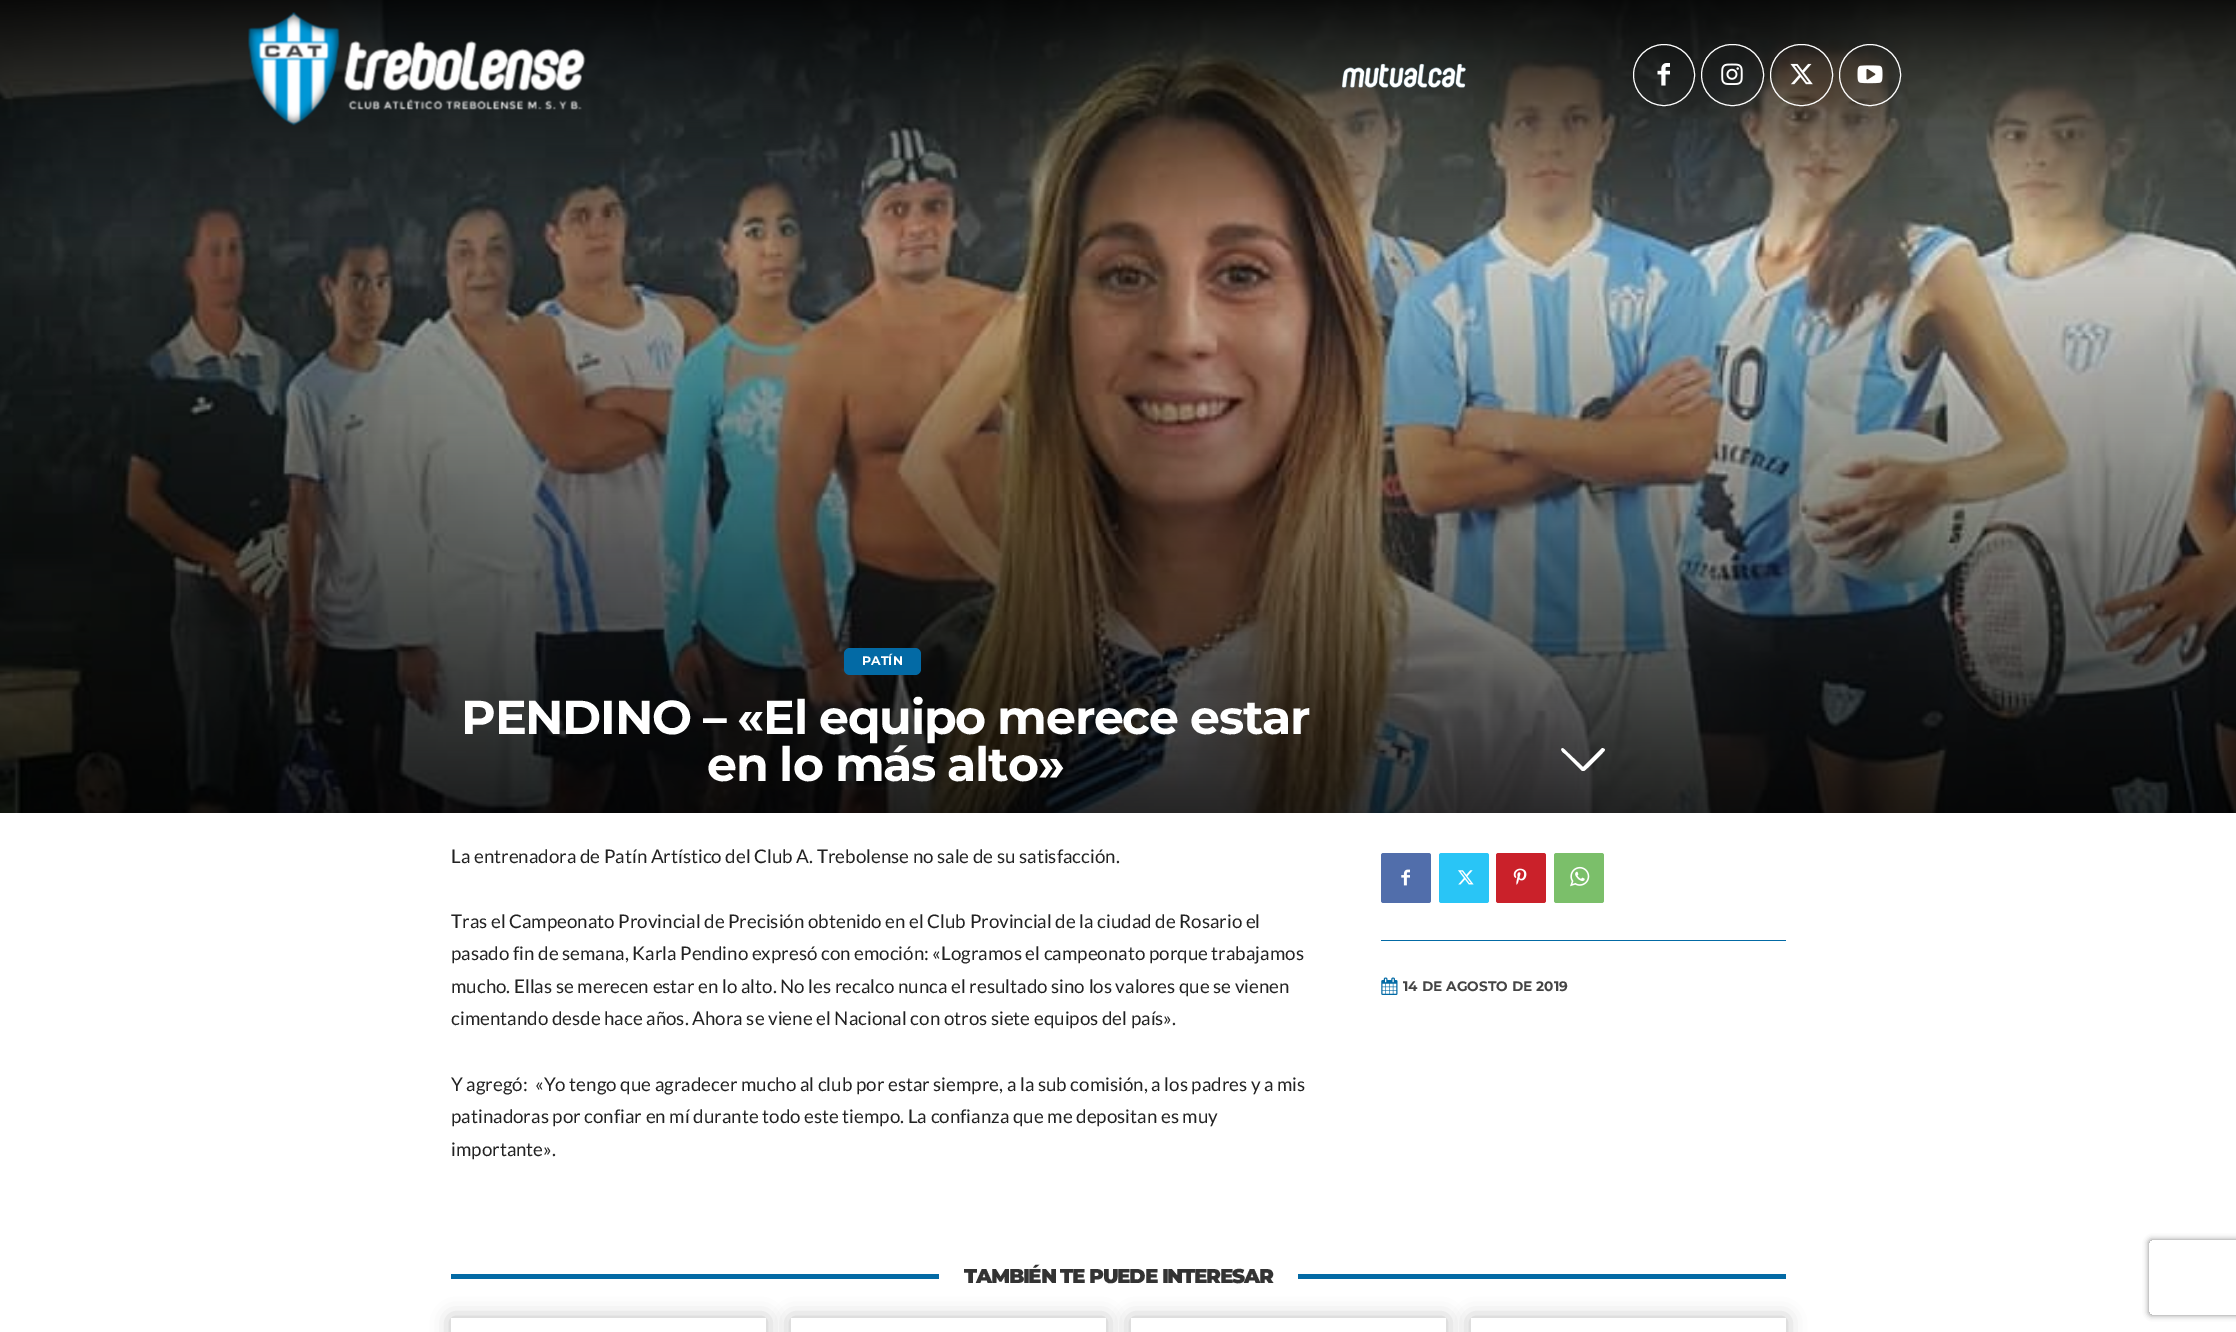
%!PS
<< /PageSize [2236 1332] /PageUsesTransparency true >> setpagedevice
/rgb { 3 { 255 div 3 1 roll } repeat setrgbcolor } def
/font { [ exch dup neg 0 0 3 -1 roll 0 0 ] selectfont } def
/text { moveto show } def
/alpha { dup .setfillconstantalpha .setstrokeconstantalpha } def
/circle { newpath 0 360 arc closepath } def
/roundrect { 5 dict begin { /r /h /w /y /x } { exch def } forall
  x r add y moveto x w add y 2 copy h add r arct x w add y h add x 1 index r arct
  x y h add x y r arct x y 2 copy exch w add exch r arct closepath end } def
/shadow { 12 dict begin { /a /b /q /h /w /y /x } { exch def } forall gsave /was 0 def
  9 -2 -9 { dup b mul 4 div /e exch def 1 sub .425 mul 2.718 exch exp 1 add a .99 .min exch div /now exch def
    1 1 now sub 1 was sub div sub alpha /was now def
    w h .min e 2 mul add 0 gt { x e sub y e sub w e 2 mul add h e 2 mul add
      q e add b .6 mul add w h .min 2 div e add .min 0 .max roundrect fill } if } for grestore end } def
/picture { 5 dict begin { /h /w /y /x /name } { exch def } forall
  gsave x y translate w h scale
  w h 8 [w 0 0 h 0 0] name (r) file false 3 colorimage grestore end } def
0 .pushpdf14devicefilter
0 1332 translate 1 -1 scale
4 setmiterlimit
255 255 255 rgb
0 0 2236 1332 rectfill
(img_07.rgb) 0 0 2236 813 picture
(img_01.rgb) 248 12 338 114 picture
(img_02.rgb) 1342 63 124 25 picture
1664 75 30.5 circle stroke
(img_03.rgb) 1657 63 13 23 picture
1701.5 44.5 62 61 30.5 roundrect stroke
(img_04.rgb) 1721 63 22 22 picture
1770.5 44.5 62 61 30.5 roundrect stroke
(img_05.rgb) 1790 63 23 22 picture
1870 75 30.5 circle stroke
(img_06.rgb) 1857 65 26 19 picture
3 106 165 rgb
844 648 77 27 6 roundrect fill
255 255 255 rgb
1564 749 moveto 19 18 rlineto 19 -19 rlineto 1 0 3 1 3 2 rcurveto 0 1 -19 20 -21 21 rcurveto -2 0 rlineto -17 -17 rlineto 0 0 -7 -5 -2 -6 rcurveto closepath fill
81 110 171 rgb
1381 853 50 50 2.5 roundrect fill
(img_08.rgb) 1401 869 9 17 picture
41 197 246 rgb
1439 853 50 50 2.5 roundrect fill
(img_09.rgb) 1458 870 16 15 picture
202 33 42 rgb
1496 853 50 50 2.5 roundrect fill
(img_10.rgb) 1513 868 14 17 picture
123 191 106 rgb
1554 853 50 50 2.5 roundrect fill
(img_11.rgb) 1570 866 20 21 picture
3 106 165 rgb
1381 940 405 1 rectfill
(img_12.rgb) 1381 977 17 18 picture
451 1274 488 5 rectfill
1298 1274 488 5 rectfill
0 0 0 rgb
451 1318 315 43 0 9.5 0.25 shadow
255 255 255 rgb
451 1318 315 14 rectfill
0 0 0 rgb
791 1318 315 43 0 9.5 0.25 shadow
255 255 255 rgb
791 1318 315 14 rectfill
0 0 0 rgb
1131 1318 315 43 0 9.5 0.25 shadow
255 255 255 rgb
1131 1318 315 14 rectfill
0 0 0 rgb
1471 1318 315 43 0 9.5 0.25 shadow
255 255 255 rgb
1471 1318 315 14 rectfill
gsave
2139 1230 moveto 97 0 rlineto 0 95 rlineto -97 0 rlineto closepath 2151.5 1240 moveto 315 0 rlineto 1.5 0 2.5 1 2.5 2.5 rcurveto 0 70 rlineto 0 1.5 -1 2.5 -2.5 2.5 rcurveto -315 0 rlineto -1.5 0 -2.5 -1 -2.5 -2.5 rcurveto 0 -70 rlineto 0 -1.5 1 -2.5 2.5 -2.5 rcurveto closepath eoclip newpath
128 128 128 rgb
2149 1240 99 75 2.5 3 1 shadow
grestore
/Montserrat-Bold 12.5 font
(PATÍN) 862 665 text
/Montserrat-Bold 47.5 font
461 734 moveto -1.25 0 (PENDINO – «El equipo merece estar) ashow
707 781 moveto -1.25 0 (en lo más alto») ashow
/Lato-Regular 18.75 font
34 34 34 rgb
(La entrenadora de Patín Artístico del Club A. Trebolense no sale de su satisfacción.) 451 863 text
(Tras el Campeonato Provincial de Precisión obtenido en el Club Provincial de la ciudad de Rosario el) 451 928 text
(pasado fin de semana, Karla Pendino expresó con emoción: «Logramos el campeonato porque trabajamos) 451 960 text
(mucho. Ellas se merecen estar en lo alto. No les recalco nunca el resultado sino los valores que se vienen) 451 993 text
(cimentando desde hace años. Ahora se viene el Nacional con otros siete equipos del país».) 451 1025 text
(Y agregó:  «Yo tengo que agradecer mucho al club por estar siempre, a la sub comisión, a los padres y a mis) 451 1091 text
(patinadoras por confiar en mí durante todo este tiempo. La confianza que me depositan es muy) 451 1123 text
(importante».) 451 1156 text
/Montserrat-Bold 13.75 font
68 68 68 rgb
(14 DE AGOSTO DE 2019) 1403 991 text
/Montserrat-Black 20 font
51 51 51 rgb
964 1283 moveto -1.25 0 (TAMBIÉN TE PUEDE INTERESAR) ashow
.poppdf14devicefilter showpage
